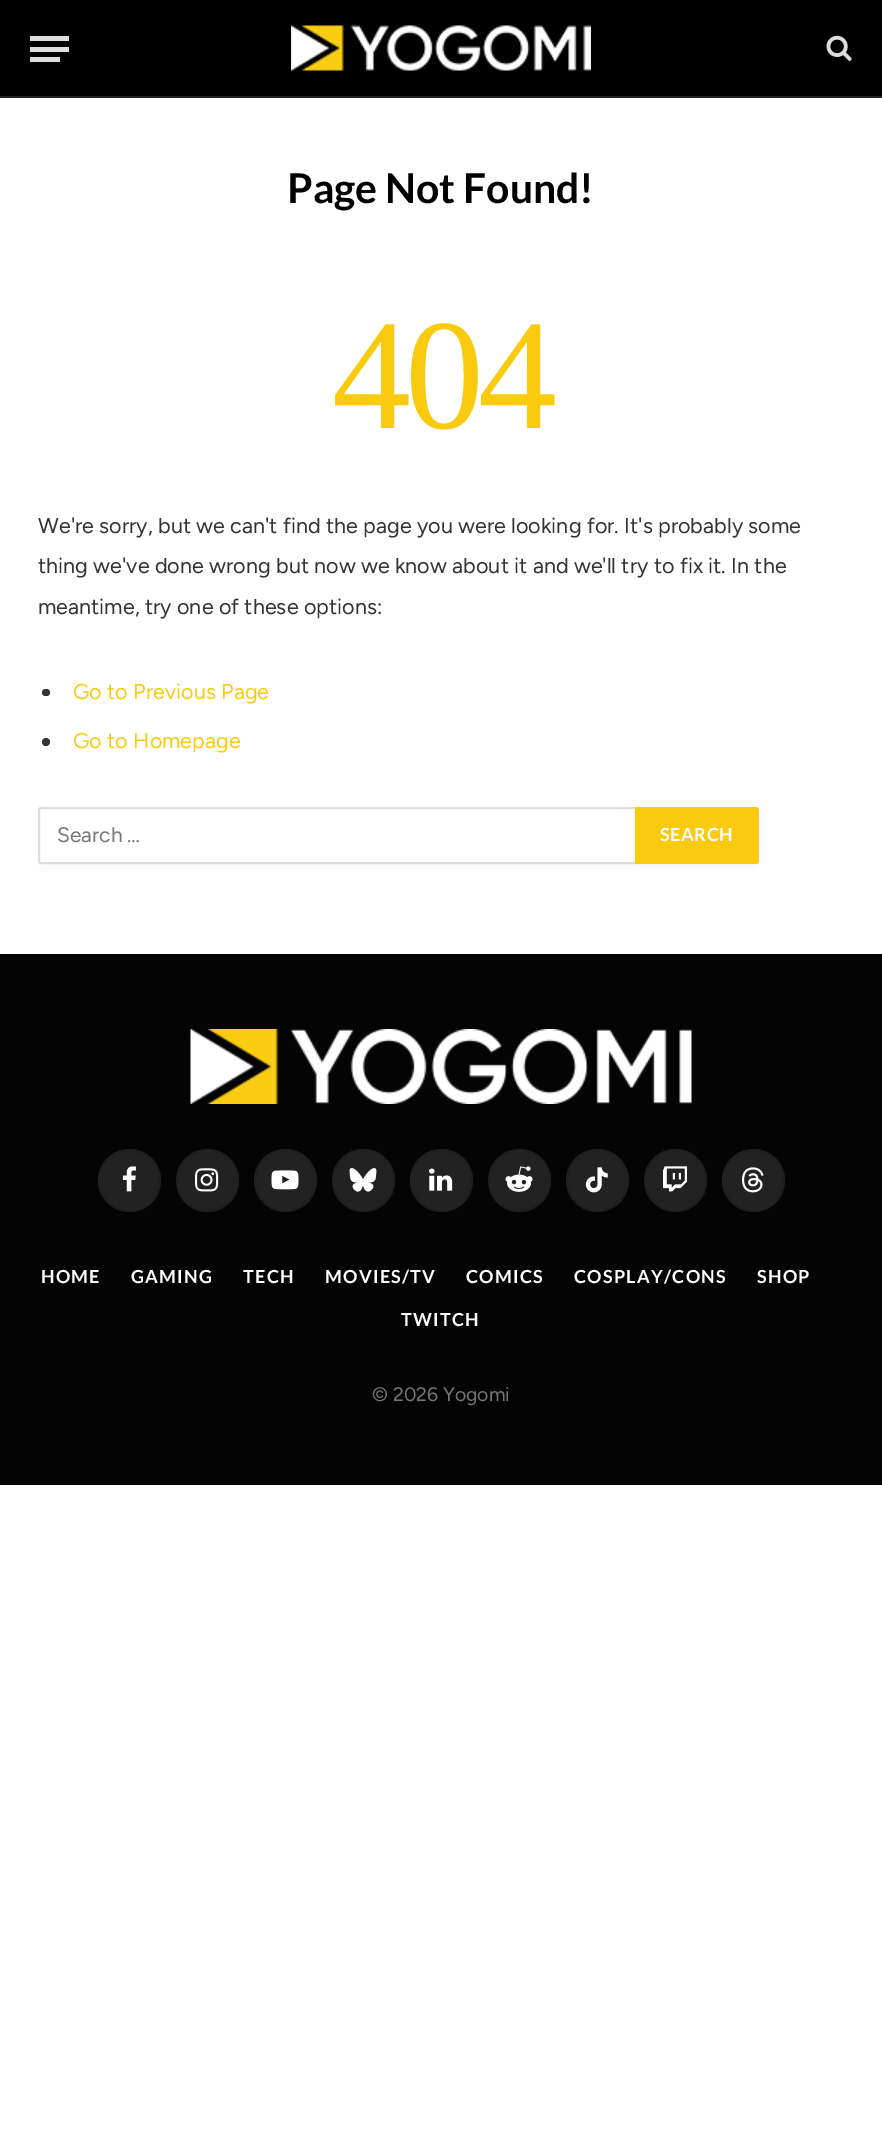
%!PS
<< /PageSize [882 2137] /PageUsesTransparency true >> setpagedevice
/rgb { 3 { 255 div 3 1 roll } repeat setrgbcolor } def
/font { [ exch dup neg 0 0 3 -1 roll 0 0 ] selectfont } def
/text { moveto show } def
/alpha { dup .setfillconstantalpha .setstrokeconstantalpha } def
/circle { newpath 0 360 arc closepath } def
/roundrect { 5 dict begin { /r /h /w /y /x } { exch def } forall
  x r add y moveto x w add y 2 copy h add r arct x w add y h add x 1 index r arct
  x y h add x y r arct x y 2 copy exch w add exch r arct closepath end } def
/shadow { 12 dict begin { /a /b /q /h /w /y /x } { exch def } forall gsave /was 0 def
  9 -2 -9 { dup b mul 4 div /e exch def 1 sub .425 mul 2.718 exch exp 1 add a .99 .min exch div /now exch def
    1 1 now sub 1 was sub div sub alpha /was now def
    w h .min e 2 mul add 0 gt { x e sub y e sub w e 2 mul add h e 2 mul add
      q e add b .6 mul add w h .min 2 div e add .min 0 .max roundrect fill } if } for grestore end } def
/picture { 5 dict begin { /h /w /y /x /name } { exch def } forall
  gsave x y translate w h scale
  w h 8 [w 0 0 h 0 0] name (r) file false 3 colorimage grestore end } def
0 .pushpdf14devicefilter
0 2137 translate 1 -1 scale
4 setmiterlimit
255 255 255 rgb
0 0 882 2137 rectfill
0 0 0 rgb
0 0 882 96 rectfill
34 34 34 rgb
0 96 882 2 rectfill
221 221 221 rgb
30 57 30 5 rectfill
30 36 39 5 rectfill
30 47 39 5 rectfill
(img_01.rgb) 291 25 300 46 picture
(img_02.rgb) 826 35 26 26 picture
51 51 51 rgb
42 689 8 7 3.5 roundrect fill
46 742 4 circle fill
0 0 0 rgb
44 816 588 45 0 5 0.1 shadow
255 255 255 rgb
39 808 598 55 2 roundrect gsave fill grestore
221 221 221 rgb
2 setlinewidth
stroke
0 0 0 rgb
641 816 112 45 0 5 0.16 shadow
250 202 15 rgb
635 807 moveto 121 0 rlineto 1.5 0 3 1.5 3 3 rcurveto 0 51 rlineto 0 1.5 -1.5 3 -3 3 rcurveto -121 0 rlineto closepath fill
4 4 4 rgb
0 954 882 531 rectfill
(img_03.rgb) 190 1029 502 75 picture
34 34 34 rgb
129.5 1180.5 31.5 circle fill
0.09 alpha
0 0 0 rgb
129.5 1180.5 30.5 circle stroke
1 alpha
(img_04.rgb) 122 1166 14 26 picture
34 34 34 rgb
207.5 1180.5 31.5 circle fill
0.09 alpha
0 0 0 rgb
207.5 1180.5 30.5 circle stroke
1 alpha
(img_05.rgb) 195 1168 24 24 picture
34 34 34 rgb
285.5 1180.5 31.5 circle fill
0.09 alpha
0 0 0 rgb
285.5 1180.5 30.5 circle stroke
1 alpha
(img_06.rgb) 271 1170 28 20 picture
34 34 34 rgb
363.5 1180.5 31.5 circle fill
0.09 alpha
0 0 0 rgb
363.5 1180.5 30.5 circle stroke
1 alpha
(img_07.rgb) 349 1168 28 24 picture
34 34 34 rgb
441.5 1180.5 31.5 circle fill
0.09 alpha
0 0 0 rgb
441.5 1180.5 30.5 circle stroke
1 alpha
(img_08.rgb) 429 1168 24 23 picture
34 34 34 rgb
519.5 1180.5 31.5 circle fill
0.09 alpha
0 0 0 rgb
519.5 1180.5 30.5 circle stroke
1 alpha
(img_09.rgb) 505 1166 28 26 picture
34 34 34 rgb
597.5 1180.5 31.5 circle fill
0.09 alpha
0 0 0 rgb
597.5 1180.5 30.5 circle stroke
1 alpha
(img_10.rgb) 585 1167 23 26 picture
34 34 34 rgb
675.5 1180.5 31.5 circle fill
0.09 alpha
0 0 0 rgb
675.5 1180.5 30.5 circle stroke
1 alpha
(img_11.rgb) 663 1166 24 26 picture
34 34 34 rgb
753.5 1180.5 31.5 circle fill
0.09 alpha
0 0 0 rgb
753.5 1180.5 30.5 circle stroke
1 alpha
(img_12.rgb) 742 1167 22 26 picture
/Lato-Bold 41 font
(Page Not Found!) 287 203 text
/LiberationSerif-Regular 158 font
250 202 15 rgb
332 428 moveto -6 0 (404) ashow
/Figtree-Regular 21.6 font
51 51 51 rgb
(We're sorry, but we can't find the page you were looking for. It's probably some) 38 533 text
(thing we've done wrong but now we know about it and we'll try to fix it. In the) 38 573 text
(meantime, try one of these options:) 38 614 text
250 202 15 rgb
(Go to Previous Page) 73 699 text
(Go to Homepage) 73 748 text
/Figtree-Regular 21 font
119 119 119 rgb
(Search …) 57 842 text
/Lato-Bold 18 font
255 255 255 rgb
660 841 moveto 0.5 0 (SEARCH) ashow
41 1283 moveto 1.25 0 (HOME) ashow
131 1283 moveto 1.25 0 (GAMING) ashow
243 1283 moveto 1.25 0 (TECH) ashow
325 1283 moveto 1.25 0 (MOVIES/TV) ashow
466 1283 moveto 1.25 0 (COMICS) ashow
574 1283 moveto 1.25 0 (COSPLAY/CONS) ashow
757 1283 moveto 1.25 0 (SHOP) ashow
401 1326 moveto 1.25 0 (TWITCH) ashow
/Figtree-Regular 19.5 font
119 119 119 rgb
(© 2026 Yogomi) 372 1401 text
.poppdf14devicefilter showpage
